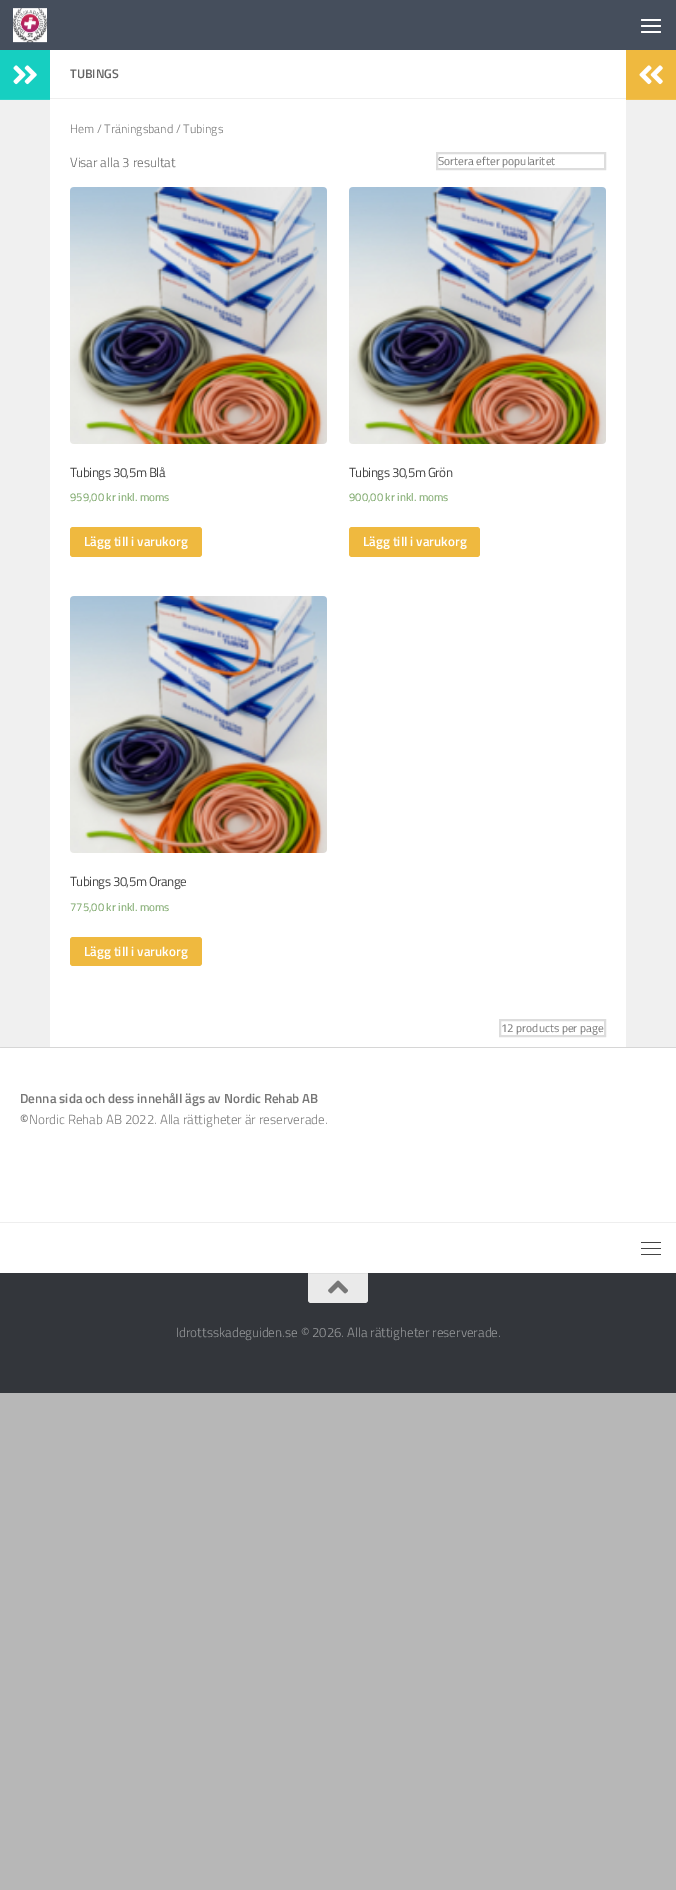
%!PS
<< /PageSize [676 1890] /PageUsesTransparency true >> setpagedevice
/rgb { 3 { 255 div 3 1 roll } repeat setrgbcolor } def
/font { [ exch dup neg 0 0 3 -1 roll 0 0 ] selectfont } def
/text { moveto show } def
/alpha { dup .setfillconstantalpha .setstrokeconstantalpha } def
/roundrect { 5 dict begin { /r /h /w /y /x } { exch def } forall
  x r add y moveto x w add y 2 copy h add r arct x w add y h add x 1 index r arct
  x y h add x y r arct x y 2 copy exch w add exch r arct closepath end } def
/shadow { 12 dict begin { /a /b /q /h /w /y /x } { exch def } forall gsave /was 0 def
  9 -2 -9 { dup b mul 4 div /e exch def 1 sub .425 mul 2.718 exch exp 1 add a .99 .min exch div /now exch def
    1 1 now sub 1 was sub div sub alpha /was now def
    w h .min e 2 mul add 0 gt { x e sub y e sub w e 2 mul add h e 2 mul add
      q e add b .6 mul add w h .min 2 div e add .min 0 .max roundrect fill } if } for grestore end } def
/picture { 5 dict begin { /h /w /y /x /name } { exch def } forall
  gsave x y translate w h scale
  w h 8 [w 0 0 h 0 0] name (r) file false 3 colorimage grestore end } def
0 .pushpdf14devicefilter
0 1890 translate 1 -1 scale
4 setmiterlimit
183 183 183 rgb
0 0 676 1890 rectfill
234 234 234 rgb
0 1047 676 1 rectfill
0 0 0 rgb
0 51 676 997 0 0.5 0.1 shadow
69 78 92 rgb
0 0 676 50 rectfill
(img_01.rgb) 13 8 34 35 picture
255 255 255 rgb
641 19 20 2 1 roundrect fill
641 25 20 2 1 roundrect fill
641 31 20 2 1 roundrect fill
50 50 576 997 rectfill
240 240 240 rgb
0 100 50 947 rectfill
22 207 193 rgb
0 50 50 49 rectfill
45 212 199 rgb
0 99 50 1 rectfill
(img_02.rgb) 13 65 24 20 picture
238 238 238 rgb
50 98 576 1 rectfill
221 221 221 rgb
2 setlinewidth
437 153 168 16 rectstroke
(img_03.rgb) 70 187 257 257 picture
239 185 63 rgb
70 527 132 30 3 roundrect fill
(img_04.rgb) 349 187 257 257 picture
349 527 131 30 3 roundrect fill
(img_03.rgb) 70 596 257 257 picture
70 937 132 29 3 roundrect fill
221 221 221 rgb
500 1020 105 16 rectstroke
239 185 63 rgb
626 50 50 49 rectfill
241 192 82 rgb
626 99 50 1 rectfill
(img_05.rgb) 639 65 24 20 picture
240 240 240 rgb
626 100 50 947 rectfill
255 255 255 rgb
0 1048 676 225 rectfill
238 238 238 rgb
0 1222 676 1 rectfill
68 68 68 rgb
641 1242 20 1 0.5 roundrect fill
641 1248 20 1 0.5 roundrect fill
641 1254 20 1 0.5 roundrect fill
51 54 59 rgb
0 1273 676 120 rectfill
234 234 234 rgb
308 1273 moveto 60 0 rlineto 0 27 rlineto 0 1.5 -1.5 3 -3 3 rcurveto -54 0 rlineto -1.5 0 -3 -1.5 -3 -3 rcurveto closepath fill
222 222 222 rgb
308 1273 60 1 rectfill
(img_06.rgb) 328 1280 20 14 picture
/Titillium-SemiBold 12.5 font
102 102 102 rgb
(TUBINGS) 70 78 text
/Titillium-Light 12.1 font
119 119 119 rgb
(Hem / Träningsband / Tubings) 70 133 text
/Titillium-Light 13.2 font
102 102 102 rgb
(Visar alla 3 resultat) 70 167 text
/Titillium-Regular 11.5 font
119 119 119 rgb
(Sortera efter popularitet) 438 165 text
/Titillium-Regular 13.2 font
68 68 68 rgb
70 477 moveto -0.5 0 (Tubings 30,5m Blå) ashow
/Titillium-Regular 11.25 font
119 164 100 rgb
(959,00 kr inkl. moms) 70 501 text
/Titillium-SemiBold 13.2 font
255 255 255 rgb
(Lägg till i varukorg) 84 546 text
/Titillium-Regular 13.2 font
68 68 68 rgb
349 477 moveto -0.5 0 (Tubings 30,5m Grön) ashow
/Titillium-Regular 11.25 font
119 164 100 rgb
(900,00 kr inkl. moms) 349 501 text
/Titillium-SemiBold 13.2 font
255 255 255 rgb
(Lägg till i varukorg) 363 546 text
/Titillium-Regular 13.2 font
68 68 68 rgb
70 886 moveto -0.5 0 (Tubings 30,5m Orange) ashow
/Titillium-Regular 11.25 font
119 164 100 rgb
(775,00 kr inkl. moms) 70 911 text
/Titillium-SemiBold 13.2 font
255 255 255 rgb
(Lägg till i varukorg) 84 956 text
/Titillium-Regular 11.5 font
119 119 119 rgb
(12 products per page) 501 1032 text
/Titillium-SemiBold 13.2 font
(Denna sida och dess innehåll ägs av Nordic Rehab AB) 20 1103 text
(©) 20 1124 text
/Titillium-Light 13.2 font
(Nordic Rehab AB 2022. Alla rättigheter är reserverade.) 29 1124 text
153 155 157 rgb
(Idrottsskadeguiden.se © 2026. Alla rättigheter reserverade.) 176 1337 text
.poppdf14devicefilter showpage
